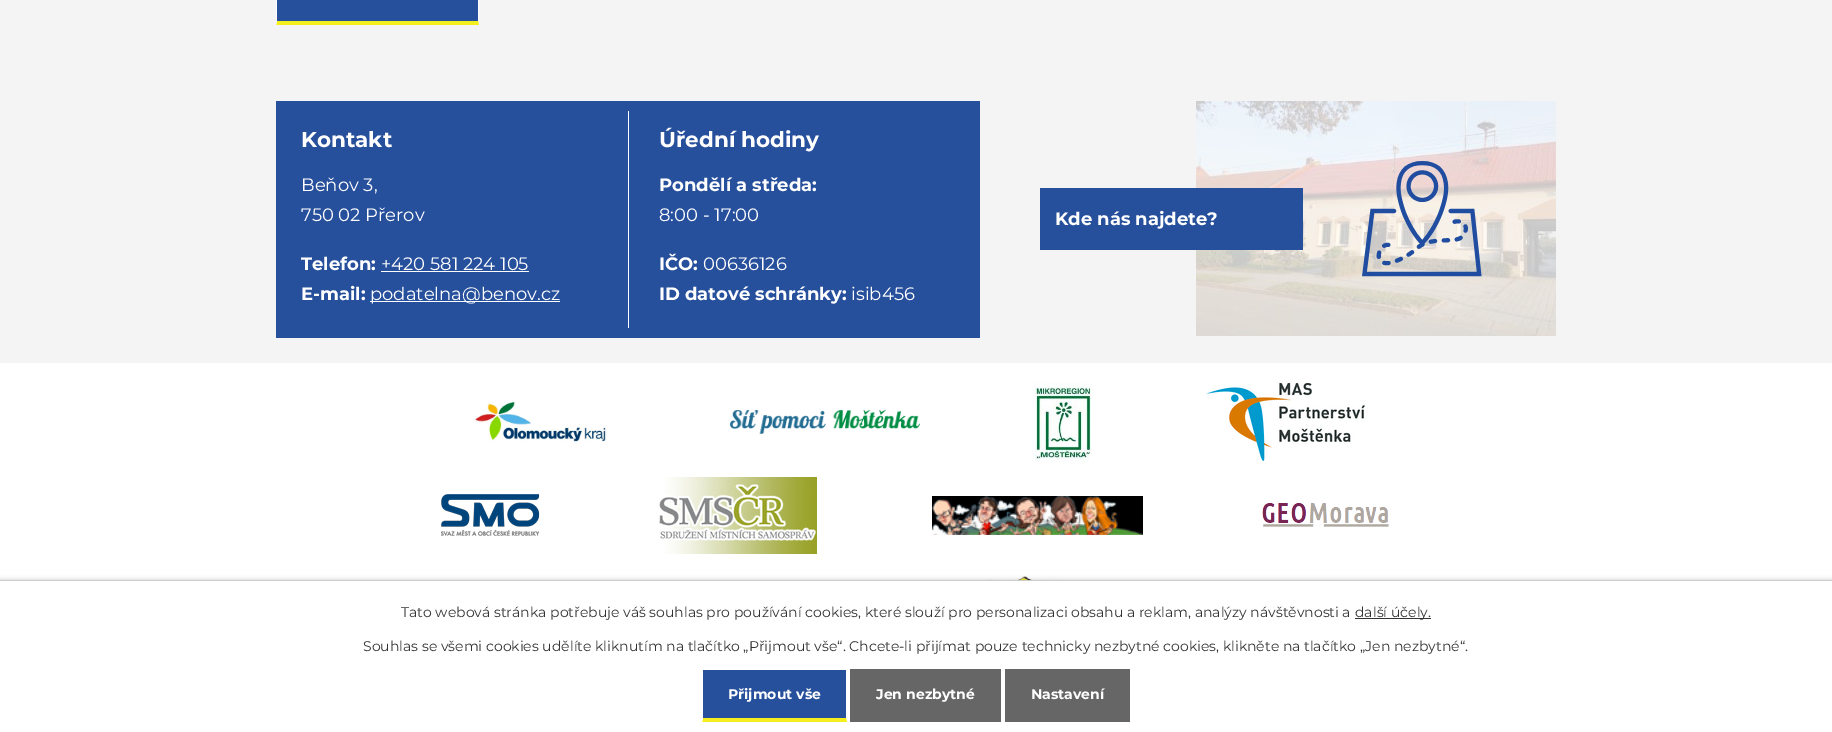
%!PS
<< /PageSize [1832 732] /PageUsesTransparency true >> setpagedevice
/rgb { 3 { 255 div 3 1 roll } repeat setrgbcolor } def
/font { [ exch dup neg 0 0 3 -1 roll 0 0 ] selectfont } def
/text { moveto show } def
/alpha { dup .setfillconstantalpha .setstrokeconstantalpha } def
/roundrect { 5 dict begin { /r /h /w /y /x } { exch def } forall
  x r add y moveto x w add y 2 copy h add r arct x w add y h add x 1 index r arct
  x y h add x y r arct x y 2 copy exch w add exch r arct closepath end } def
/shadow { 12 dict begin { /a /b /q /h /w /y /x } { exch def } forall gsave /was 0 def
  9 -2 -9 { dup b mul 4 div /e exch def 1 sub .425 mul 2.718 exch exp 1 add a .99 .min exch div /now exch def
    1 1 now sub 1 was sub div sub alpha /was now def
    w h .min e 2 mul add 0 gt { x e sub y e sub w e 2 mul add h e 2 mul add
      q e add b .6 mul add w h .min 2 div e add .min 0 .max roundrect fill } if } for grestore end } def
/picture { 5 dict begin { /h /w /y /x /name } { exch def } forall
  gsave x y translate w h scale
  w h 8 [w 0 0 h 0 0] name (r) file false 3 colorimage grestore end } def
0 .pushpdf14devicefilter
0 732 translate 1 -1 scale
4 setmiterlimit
244 244 244 rgb
0 0 1832 732 rectfill
38 79 156 rgb
277 0 201 21 rectfill
255 255 255 rgb
479 -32 moveto 0 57 rlineto -1 -4 rlineto 0 -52 rlineto closepath fill
244 238 29 rgb
479 25 moveto -203 0 rlineto 1 -4 rlineto 201 0 rlineto closepath fill
255 255 255 rgb
276 25 moveto 0 -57 rlineto 1 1 rlineto 0 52 rlineto closepath fill
38 79 156 rgb
276 101 704 237 rectfill
255 255 255 rgb
381 271 148 1 rectfill
370 301 190 1 rectfill
628 111 1 217 rectfill
(img_01.rgb) 1196 101 360 235 picture
(img_02.rgb) 1362 161 120 116 picture
38 79 156 rgb
1040 188 263 62 rectfill
255 255 255 rgb
0 363 1832 217 rectfill
(img_03.rgb) 474 402 132 40 picture
(img_04.rgb) 730 410 190 24 picture
(img_05.rgb) 1035 383 56 79 picture
(img_06.rgb) 1206 383 159 78 picture
(img_07.rgb) 441 494 99 42 picture
(img_08.rgb) 659 477 158 77 picture
(img_09.rgb) 932 496 211 39 picture
(img_10.rgb) 1262 503 127 24 picture
(img_11.rgb) 982 576 95 4 picture
0 0 0 rgb
0 580 1832 152 0 2.5 0.2 shadow
255 255 255 rgb
0 581 1832 151 rectfill
204 204 204 rgb
0 580 1832 1 rectfill
51 51 51 rgb
1355 618 76 1 rectfill
38 79 156 rgb
703 670 143 48 rectfill
244 238 29 rgb
847 722 moveto -145 0 rlineto 1 -4 rlineto 143 0 rlineto closepath fill
255 255 255 rgb
702 722 moveto 0 -53 rlineto 1 1 rlineto 0 48 rlineto closepath fill
102 102 102 rgb
851 670 149 48 rectfill
850 669 151 1 rectfill
1000 669 1 53 rectfill
850 718 151 4 rectfill
850 669 1 53 rectfill
1006 670 123 48 rectfill
1005 669 125 1 rectfill
1129 669 1 53 rectfill
1005 718 125 4 rectfill
1005 669 1 53 rectfill
/Montserrat-Bold 21.5 font
255 255 255 rgb
(Kontakt) 301 147 text
/Montserrat-Regular 18 font
(Beňov 3,) 301 191 text
(750 02 Přerov) 301 221 text
/Montserrat-Bold 18 font
(Telefon:) 301 270 text
/Montserrat-Regular 18 font
(+420 581 224 105) 381 270 text
/Montserrat-Bold 18 font
(E-mail:) 301 300 text
/Montserrat-Regular 18 font
(podatelna@benov.cz) 370 300 text
/Montserrat-Bold 21.5 font
(Úřední hodiny) 659 147 text
/Montserrat-Bold 18 font
(Pondělí a středa:) 659 191 text
/Montserrat-Regular 18 font
(8:00 - 17:00) 659 221 text
/Montserrat-Bold 18 font
(IČO:) 659 270 text
/Montserrat-Regular 18 font
(00636126) 703 270 text
/Montserrat-Bold 18 font
(ID datové schránky:) 659 300 text
/Montserrat-Regular 18 font
(isib456) 851 300 text
/Montserrat-Bold 18 font
(Kde nás najdete?) 1055 225 text
/Montserrat-Regular 14 font
51 51 51 rgb
(Tato webová stránka potřebuje váš souhlas pro používání cookies, které slouží pro personalizaci obsahu a reklam, analýzy návštěvnosti a) 401 617 text
(další účely.) 1355 617 text
(Souhlas se všemi cookies udělíte kliknutím na tlačítko „Přijmout vše“. Chcete-li přijímat pouze technicky nezbytné cookies, klikněte na tlačítko „Jen nezbytné“.) 363 651 text
/Montserrat-Bold 14 font
255 255 255 rgb
(Přijmout vše) 728 699 text
(Jen nezbytné) 876 699 text
(Nastavení) 1031 699 text
.poppdf14devicefilter showpage
